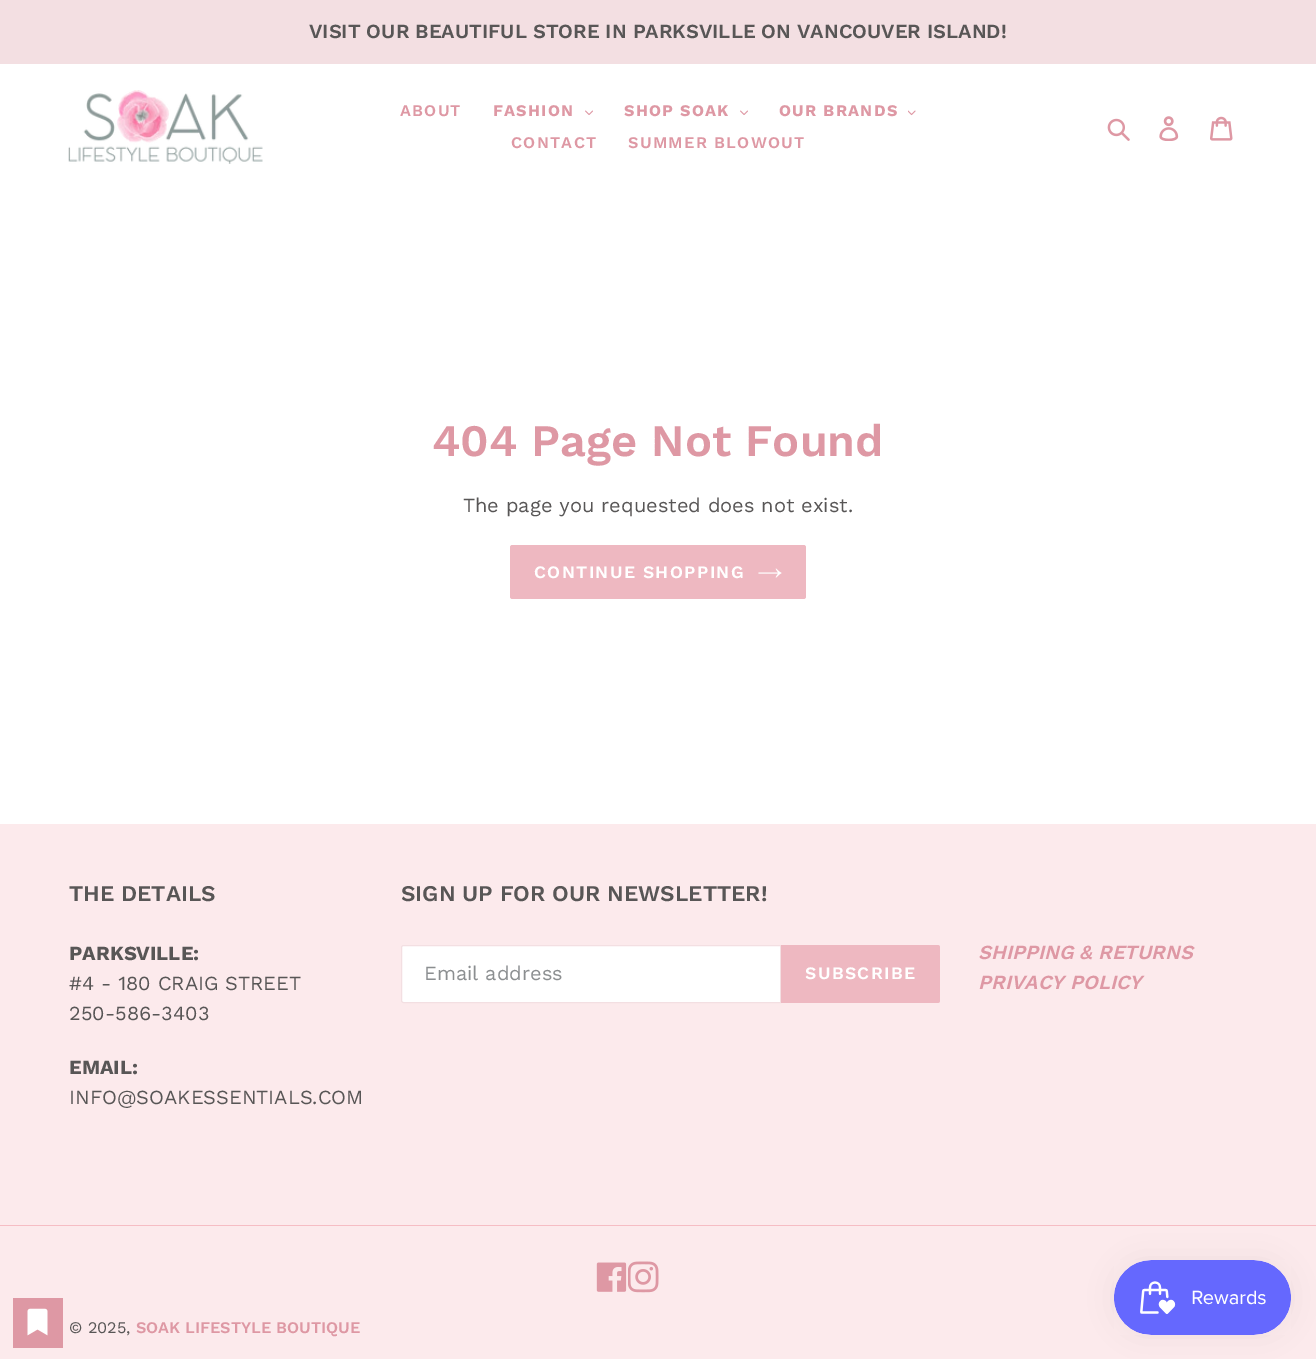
%!PS
<< /PageSize [1316 1359] /PageUsesTransparency true >> setpagedevice
/rgb { 3 { 255 div 3 1 roll } repeat setrgbcolor } def
/font { [ exch dup neg 0 0 3 -1 roll 0 0 ] selectfont } def
/text { moveto show } def
/alpha { dup .setfillconstantalpha .setstrokeconstantalpha } def
/roundrect { 5 dict begin { /r /h /w /y /x } { exch def } forall
  x r add y moveto x w add y 2 copy h add r arct x w add y h add x 1 index r arct
  x y h add x y r arct x y 2 copy exch w add exch r arct closepath end } def
/shadow { 12 dict begin { /a /b /q /h /w /y /x } { exch def } forall gsave /was 0 def
  9 -2 -9 { dup b mul 4 div /e exch def 1 sub .425 mul 2.718 exch exp 1 add a .99 .min exch div /now exch def
    1 1 now sub 1 was sub div sub alpha /was now def
    w h .min e 2 mul add 0 gt { x e sub y e sub w e 2 mul add h e 2 mul add
      q e add b .6 mul add w h .min 2 div e add .min 0 .max roundrect fill } if } for grestore end } def
/picture { 5 dict begin { /h /w /y /x /name } { exch def } forall
  gsave x y translate w h scale
  w h 8 [w 0 0 h 0 0] name (r) file false 3 colorimage grestore end } def
0 .pushpdf14devicefilter
0 1359 translate 1 -1 scale
4 setmiterlimit
255 255 255 rgb
0 0 1316 1359 rectfill
243 223 226 rgb
0 0 1316 64 rectfill
(img_01.rgb) 68 90 195 74 picture
(img_02.rgb) 585 110 8 5 picture
(img_02.rgb) 740 110 8 5 picture
(img_03.rgb) 908 110 8 6 picture
(img_04.rgb) 1107 118 23 23 picture
(img_05.rgb) 1159 116 20 25 picture
(img_06.rgb) 1210 116 23 25 picture
238 184 193 rgb
510 545 296 54 2.5 roundrect fill
(img_07.rgb) 758 568 24 10 picture
252 234 236 rgb
0 824 1316 535 rectfill
255 255 255 rgb
403.5 945.5 moveto 377 0 rlineto 0 57 rlineto -377 0 rlineto -1 0 -2 -1 -2 -2 rcurveto 0 -53 rlineto 0 -1 1 -2 2 -2 rcurveto closepath gsave fill grestore
243 223 226 rgb
stroke
238 184 193 rgb
781 945 moveto 156.5 0 rlineto 1.5 0 2.5 1 2.5 2.5 rcurveto 0 53 rlineto 0 1.5 -1 2.5 -2.5 2.5 rcurveto -156.5 0 rlineto closepath fill
246 189 196 rgb
0 1225 1316 1 rectfill
(img_08.rgb) 596 1262 31 30 picture
(img_09.rgb) 628 1261 31 32 picture
222 152 164 rgb
13 1298 50 50 rectfill
(img_10.rgb) 27 1308 21 28 picture
0 0 0 rgb
1114 1260 177 75 37.5 15.5 0.05 shadow
(img_11.rgb) 1114 1260 177 75 picture
/WorkSans-SemiBold 20 font
88 86 86 rgb
(VISIT OUR BEAUTIFUL STORE IN PARKSVILLE ON VANCOUVER ISLAND!) 309 38 text
/WorkSans-SemiBold 16.25 font
222 152 164 rgb
400 116 moveto 1.25 0 (ABOUT) ashow
/WorkSans-Bold 16.25 font
493 116 moveto 1.25 0 (FASHION) ashow
624 116 moveto 1.25 0 (SHOP SOAK) ashow
779 116 moveto 1.25 0 (OUR BRANDS) ashow
/WorkSans-SemiBold 16.25 font
511 148 moveto 1.25 0 (CONTACT) ashow
628 148 moveto 1.25 0 (SUMMER BLOWOUT) ashow
/WorkSans-SemiBold 45 font
(404 Page Not Found) 432 456 text
/WorkSans-Regular 20 font
88 86 86 rgb
(The page you requested does not exist.) 463 512 text
/WorkSans-SemiBold 17.5 font
255 255 255 rgb
534 578 moveto 1.4 0 (CONTINUE SHOPPING) ashow
/WorkSans-SemiBold 22.5 font
88 86 86 rgb
(THE DETAILS) 69 901 text
/WorkSans-Bold 20 font
(PARKSVILLE:) 69 960 text
/WorkSans-Regular 20 font
(#4 - 180 CRAIG STREET) 69 990 text
(250-586-3403) 69 1020 text
/WorkSans-Bold 20 font
(EMAIL:) 69 1074 text
/WorkSans-Regular 20 font
(INFO@SOAKESSENTIALS.COM) 69 1104 text
/WorkSans-SemiBold 22.5 font
(SIGN UP FOR OUR NEWSLETTER!) 401 901 text
/WorkSans-Regular 20 font
139 142 144 rgb
(Email address) 424 980 text
/WorkSans-SemiBold 17.5 font
255 255 255 rgb
805 979 moveto 1.4 0 (SUBSCRIBE) ashow
/WorkSans-SemiBoldItalic 20 font
222 152 164 rgb
(SHIPPING & RETURNS) 978 959 text
(PRIVACY POLICY) 978 989 text
/WorkSans-Regular 16.25 font
88 86 86 rgb
(© 2025,) 69 1333 text
/WorkSans-SemiBold 16.25 font
222 152 164 rgb
(SOAK LIFESTYLE BOUTIQUE) 136 1333 text
.poppdf14devicefilter showpage
